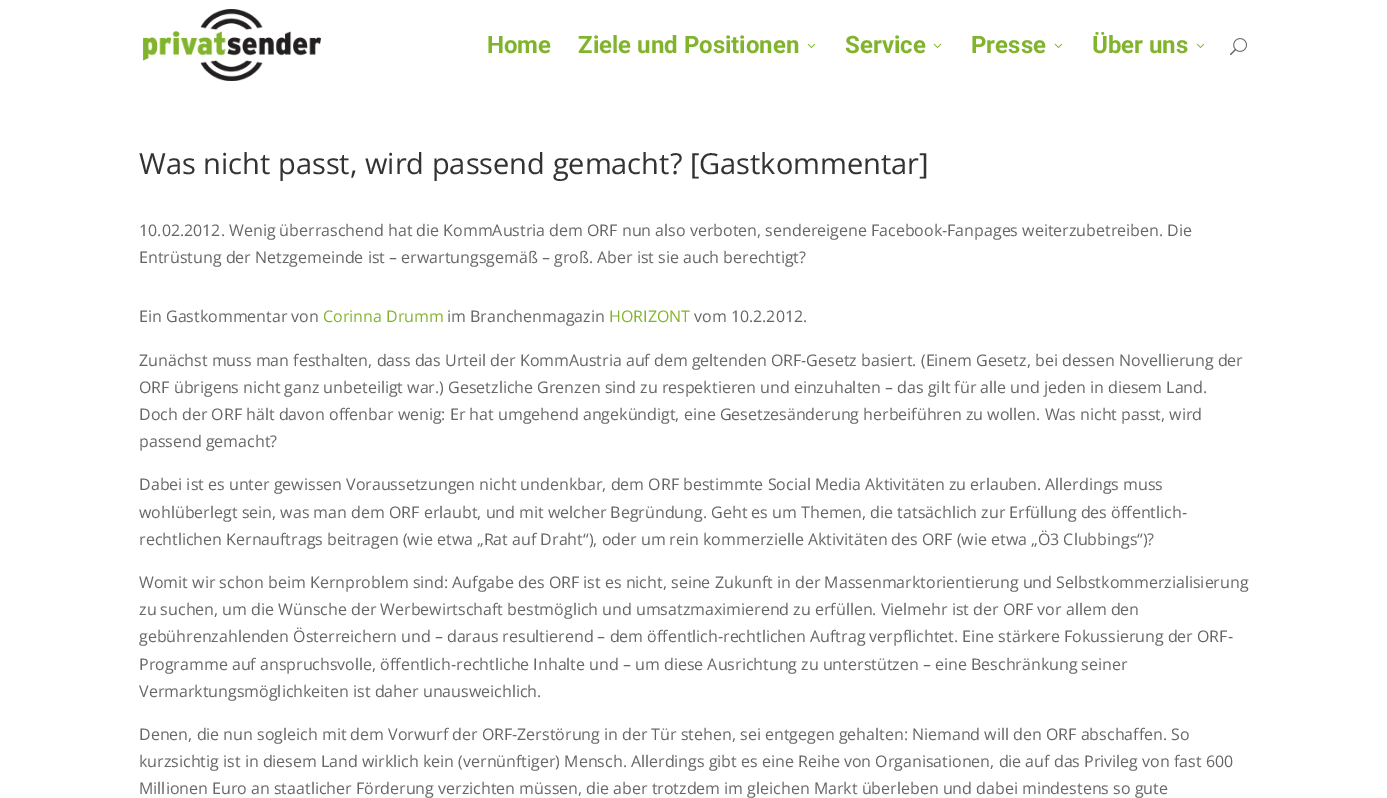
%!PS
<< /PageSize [1387 798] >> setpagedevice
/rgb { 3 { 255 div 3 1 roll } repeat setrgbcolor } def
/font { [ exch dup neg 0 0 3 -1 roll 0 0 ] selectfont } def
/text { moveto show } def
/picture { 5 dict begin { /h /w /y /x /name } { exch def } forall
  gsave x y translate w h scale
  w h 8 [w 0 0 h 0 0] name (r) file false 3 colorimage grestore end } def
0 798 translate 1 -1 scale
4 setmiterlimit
255 255 255 rgb
0 0 1387 798 rectfill
(img_01.rgb) 143 9 178 72 picture
(img_02.rgb) 807 43 9 5 picture
(img_02.rgb) 933 43 9 5 picture
(img_02.rgb) 1054 43 9 5 picture
(img_02.rgb) 1196 43 9 5 picture
(img_03.rgb) 1230 38 17 18 picture
/Roboto-Bold 24 font
129 180 44 rgb
(Home) 487 53 text
(Ziele und Positionen) 578 53 text
(Service) 845 53 text
(Presse) 971 53 text
(Über uns) 1092 53 text
/OpenSans-Regular 29 font
51 51 51 rgb
(Was nicht passt, wird passend gemacht? [Gastkommentar]) 139 174 text
/OpenSans-Regular 16 font
102 102 102 rgb
(10.02.2012. Wenig überraschend hat die KommAustria dem ORF nun also verboten, sendereigene Facebook-Fanpages weiterzubetreiben. Die) 139 236 text
(Entrüstung der Netzgemeinde ist – erwartungsgemäß – groß. Aber ist sie auch berechtigt?) 139 263 text
(Ein Gastkommentar von) 139 322 text
129 180 44 rgb
(Corinna Drumm) 323 322 text
102 102 102 rgb
(im Branchenmagazin) 447 322 text
129 180 44 rgb
(HORIZONT) 609 322 text
102 102 102 rgb
(vom 10.2.2012.) 694 322 text
(Zunächst muss man festhalten, dass das Urteil der KommAustria auf dem geltenden ORF-Gesetz basiert. \(Einem Gesetz, bei dessen Novellierung der) 139 366 text
(ORF übrigens nicht ganz unbeteiligt war.\) Gesetzliche Grenzen sind zu respektieren und einzuhalten – das gilt für alle und jeden in diesem Land.) 139 393 text
(Doch der ORF hält davon offenbar wenig: Er hat umgehend angekündigt, eine Gesetzesänderung herbeiführen zu wollen. Was nicht passt, wird) 139 420 text
(passend gemacht?) 139 447 text
(Dabei ist es unter gewissen Voraussetzungen nicht undenkbar, dem ORF bestimmte Social Media Aktivitäten zu erlauben. Allerdings muss) 139 490 text
(wohlüberlegt sein, was man dem ORF erlaubt, und mit welcher Begründung. Geht es um Themen, die tatsächlich zur Erfüllung des öffentlich-) 139 518 text
(rechtlichen Kernauftrags beitragen \(wie etwa „Rat auf Draht“\), oder um rein kommerzielle Aktivitäten des ORF \(wie etwa „Ö3 Clubbings“\)?) 139 545 text
(Womit wir schon beim Kernproblem sind: Aufgabe des ORF ist es nicht, seine Zukunft in der Massenmarktorientierung und Selbstkommerzialisierung) 139 588 text
(zu suchen, um die Wünsche der Werbewirtschaft bestmöglich und umsatzmaximierend zu erfüllen. Vielmehr ist der ORF vor allem den) 139 615 text
(gebührenzahlenden Österreichern und – daraus resultierend – dem öffentlich-rechtlichen Auftrag verpflichtet. Eine stärkere Fokussierung der ORF-) 139 642 text
(Programme auf anspruchsvolle, öffentlich-rechtliche Inhalte und – um diese Ausrichtung zu unterstützen – eine Beschränkung seiner) 139 670 text
(Vermarktungsmöglichkeiten ist daher unausweichlich.) 139 697 text
(Denen, die nun sogleich mit dem Vorwurf der ORF-Zerstörung in der Tür stehen, sei entgegen gehalten: Niemand will den ORF abschaffen. So) 139 740 text
(kurzsichtig ist in diesem Land wirklich kein \(vernünftiger\) Mensch. Allerdings gibt es eine Reihe von Organisationen, die auf das Privileg von fast 600) 139 767 text
(Millionen Euro an staatlicher Förderung verzichten müssen, die aber trotzdem im gleichen Markt überleben und dabei mindestens so gute) 139 794 text
showpage
